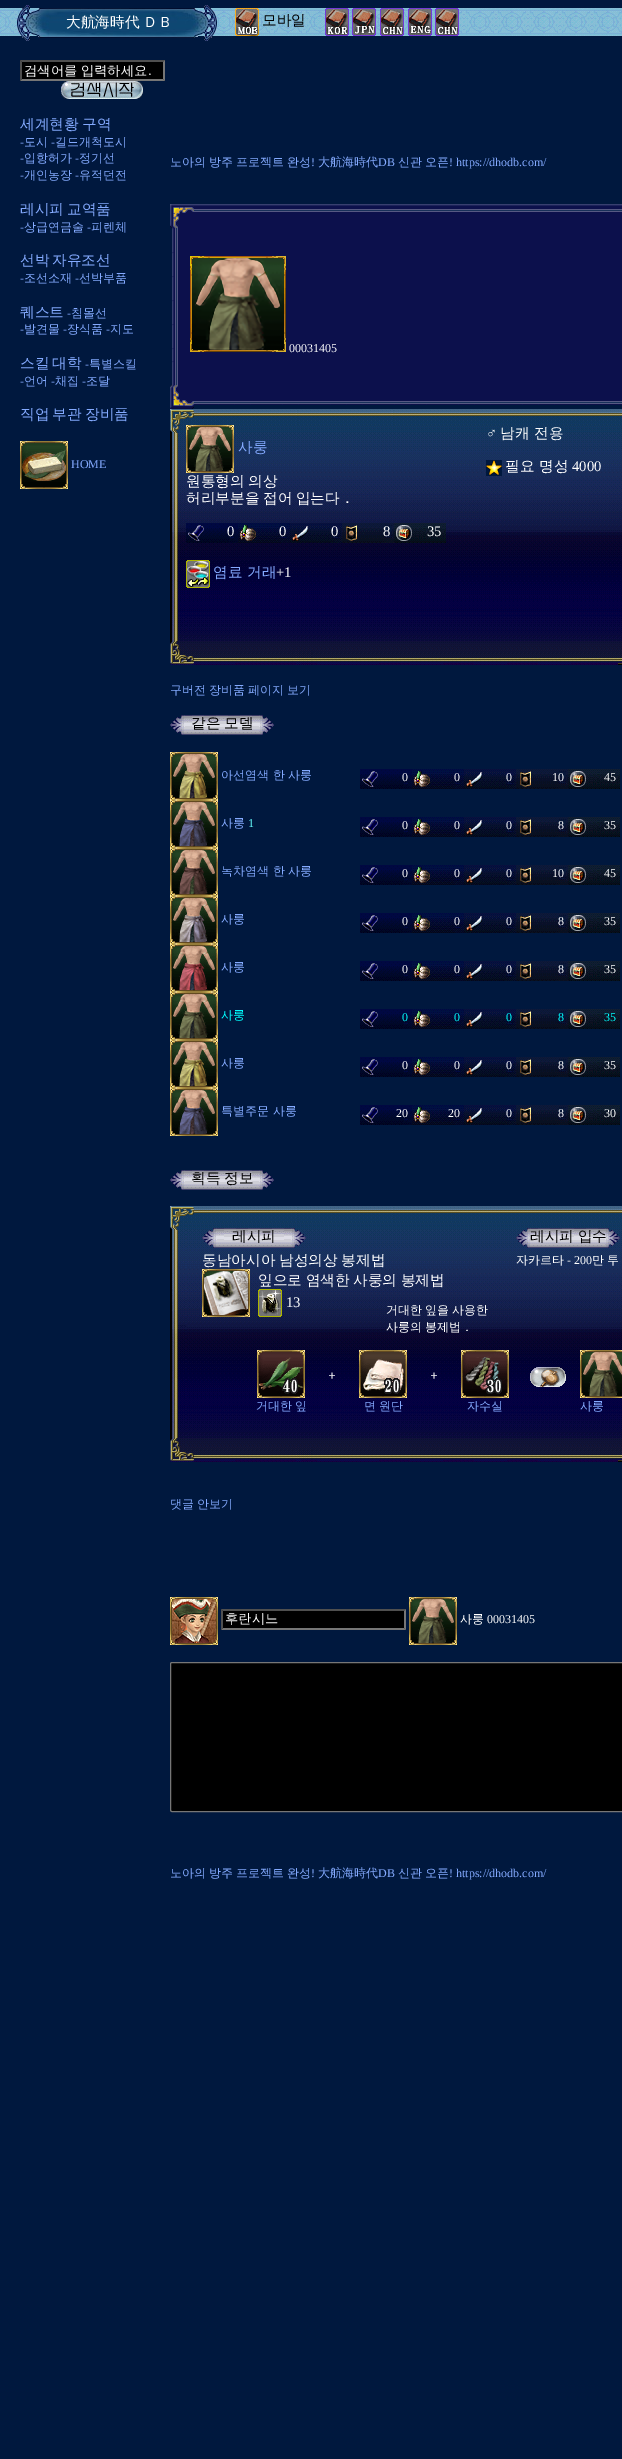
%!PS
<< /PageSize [622 2459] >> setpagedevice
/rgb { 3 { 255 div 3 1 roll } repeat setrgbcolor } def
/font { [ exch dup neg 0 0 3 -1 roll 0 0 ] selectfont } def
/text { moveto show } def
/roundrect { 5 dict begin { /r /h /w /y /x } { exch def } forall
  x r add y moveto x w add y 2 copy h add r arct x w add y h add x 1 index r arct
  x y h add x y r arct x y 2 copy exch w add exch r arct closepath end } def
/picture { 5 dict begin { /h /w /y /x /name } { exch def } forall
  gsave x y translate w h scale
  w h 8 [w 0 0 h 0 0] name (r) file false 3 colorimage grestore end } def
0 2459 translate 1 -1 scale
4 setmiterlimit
0 24 62 rgb
0 0 622 2459 rectfill
(img_01.rgb) 0 8 622 28 picture
(img_02.rgb) 17 5 200 36 picture
(img_03.rgb) 235 8 24 28 picture
(img_04.rgb) 325 8 24 28 picture
(img_05.rgb) 352 8 24 28 picture
(img_06.rgb) 380 8 24 28 picture
(img_07.rgb) 408 8 24 28 picture
(img_08.rgb) 435 8 24 28 picture
0 0 0 rgb
20 60 145 21 rectfill
79 79 79 rgb
20 60 moveto 145 0 rlineto -2 2 rlineto -141 0 rlineto closepath fill
118 118 118 rgb
165 60 moveto 0 21 rlineto -2 -2 rlineto 0 -17 rlineto closepath fill
165 81 moveto -145 0 rlineto 2 -2 rlineto 141 0 rlineto closepath fill
79 79 79 rgb
20 81 moveto 0 -21 rlineto 2 2 rlineto 0 17 rlineto closepath fill
(img_09.rgb) 61 81 82 18 picture
(img_10.rgb) 20 441 48 48 picture
(img_11.rgb) 170 204 452 48 picture
(img_12.rgb) 172 252 450 109 picture
(img_13.rgb) 190 256 96 96 picture
(img_14.rgb) 170 361 452 48 picture
(img_15.rgb) 170 409 452 16 picture
(img_16.rgb) 170 425 16 224 picture
(img_17.rgb) 186 425 436 224 picture
(img_18.rgb) 186 425 48 48 picture
(img_19.rgb) 186 523 52 20 picture
(img_20.rgb) 238 523 52 20 picture
(img_21.rgb) 290 523 52 20 picture
(img_22.rgb) 342 523 52 20 picture
(img_23.rgb) 394 523 52 20 picture
(img_24.rgb) 486 460 16 16 picture
(img_25.rgb) 186 560 24 28 picture
(img_26.rgb) 170 649 452 16 picture
(img_27.rgb) 170 715 104 20 picture
(img_28.rgb) 170 752 48 48 picture
(img_19.rgb) 360 769 52 20 picture
(img_20.rgb) 412 769 52 20 picture
(img_21.rgb) 464 769 52 20 picture
(img_22.rgb) 516 769 52 20 picture
(img_23.rgb) 568 769 52 20 picture
(img_29.rgb) 170 800 48 48 picture
(img_19.rgb) 360 817 52 20 picture
(img_20.rgb) 412 817 52 20 picture
(img_21.rgb) 464 817 52 20 picture
(img_22.rgb) 516 817 52 20 picture
(img_23.rgb) 568 817 52 20 picture
(img_30.rgb) 170 848 48 48 picture
(img_19.rgb) 360 865 52 20 picture
(img_20.rgb) 412 865 52 20 picture
(img_21.rgb) 464 865 52 20 picture
(img_22.rgb) 516 865 52 20 picture
(img_23.rgb) 568 865 52 20 picture
(img_31.rgb) 170 896 48 48 picture
(img_19.rgb) 360 913 52 20 picture
(img_20.rgb) 412 913 52 20 picture
(img_21.rgb) 464 913 52 20 picture
(img_22.rgb) 516 913 52 20 picture
(img_23.rgb) 568 913 52 20 picture
(img_32.rgb) 170 944 48 48 picture
(img_19.rgb) 360 961 52 20 picture
(img_20.rgb) 412 961 52 20 picture
(img_21.rgb) 464 961 52 20 picture
(img_22.rgb) 516 961 52 20 picture
(img_23.rgb) 568 961 52 20 picture
(img_18.rgb) 170 992 48 48 picture
(img_19.rgb) 360 1009 52 20 picture
(img_20.rgb) 412 1009 52 20 picture
(img_21.rgb) 464 1009 52 20 picture
(img_22.rgb) 516 1009 52 20 picture
(img_23.rgb) 568 1009 52 20 picture
(img_28.rgb) 170 1040 48 48 picture
(img_19.rgb) 360 1057 52 20 picture
(img_20.rgb) 412 1057 52 20 picture
(img_21.rgb) 464 1057 52 20 picture
(img_22.rgb) 516 1057 52 20 picture
(img_23.rgb) 568 1057 52 20 picture
(img_29.rgb) 170 1088 48 48 picture
(img_19.rgb) 360 1105 52 20 picture
(img_20.rgb) 412 1105 52 20 picture
(img_21.rgb) 464 1105 52 20 picture
(img_22.rgb) 516 1105 52 20 picture
(img_23.rgb) 568 1105 52 20 picture
(img_27.rgb) 170 1170 104 20 picture
(img_15.rgb) 170 1206 452 16 picture
(img_16.rgb) 170 1222 16 224 picture
(img_17.rgb) 186 1222 436 224 picture
(img_33.rgb) 202 1228 104 20 picture
(img_34.rgb) 516 1228 104 20 picture
(img_35.rgb) 202 1269 48 48 picture
(img_36.rgb) 258 1289 24 28 picture
(img_37.rgb) 530 1367 36 20 picture
(img_38.rgb) 257 1350 48 48 picture
(img_39.rgb) 282 1378 8 16 picture
(img_40.rgb) 290 1378 8 16 picture
(img_41.rgb) 359 1350 48 48 picture
(img_42.rgb) 384 1378 8 16 picture
(img_43.rgb) 392 1378 8 16 picture
(img_44.rgb) 461 1350 48 48 picture
(img_45.rgb) 486 1378 8 16 picture
(img_46.rgb) 494 1378 8 16 picture
(img_47.rgb) 580 1350 42 48 picture
(img_26.rgb) 170 1446 452 16 picture
(img_48.rgb) 170 1597 48 48 picture
0 0 0 rgb
221 1609 185 21 rectfill
79 79 79 rgb
221 1609 moveto 185 0 rlineto -2 2 rlineto -181 0 rlineto closepath fill
118 118 118 rgb
406 1609 moveto 0 21 rlineto -2 -2 rlineto 0 -17 rlineto closepath fill
406 1630 moveto -185 0 rlineto 2 -2 rlineto 181 0 rlineto closepath fill
79 79 79 rgb
221 1630 moveto 0 -21 rlineto 2 2 rlineto 0 17 rlineto closepath fill
(img_18.rgb) 409 1597 48 48 picture
0 0 0 rgb
170.5 1662.5 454 149 1.5 roundrect gsave fill grestore
118 118 118 rgb
stroke
/WenQuanYiZenHei-Medium 14.7 font
255 255 255 rgb
66 27 moveto -1 0 32 (大航海時代 ＤＢ) widthshow
0 0 0 rgb
(모바일) 262 25 text
/WenQuanYiZenHei-Medium 13.25 font
255 255 255 rgb
(검색어를 입력하세요) 24 75 text
/LiberationSans-Regular 13.25 font
(.) 148 75 text
/WenQuanYiZenHei-Medium 14.7 font
132 170 255 rgb
(세계현황) 20 129 text
(구역) 82 129 text
/LiberationSerif-Regular 12 font
(-) 20 146 text
/WenQuanYiZenHei-Medium 12 font
(도시) 24 146 text
/LiberationSerif-Regular 12 font
(-) 51 146 text
/WenQuanYiZenHei-Medium 12 font
(길드개척도시) 55 146 text
/LiberationSerif-Regular 12 font
(-) 20 162 text
/WenQuanYiZenHei-Medium 12 font
(입항허가) 24 162 text
/LiberationSerif-Regular 12 font
(-) 75 162 text
/WenQuanYiZenHei-Medium 12 font
(정기선) 79 162 text
/LiberationSerif-Regular 12 font
(-) 20 179 text
/WenQuanYiZenHei-Medium 12 font
(개인농장) 24 179 text
/LiberationSerif-Regular 12 font
(-) 75 179 text
/WenQuanYiZenHei-Medium 12 font
(유적던전) 79 179 text
/WenQuanYiZenHei-Medium 14.7 font
(레시피) 20 214 text
(교역품) 67 214 text
/LiberationSerif-Regular 12 font
(-) 20 231 text
/WenQuanYiZenHei-Medium 12 font
(상급연금술) 24 231 text
/LiberationSerif-Regular 12 font
(-) 87 231 text
/WenQuanYiZenHei-Medium 12 font
(피렌체) 91 231 text
/WenQuanYiZenHei-Medium 14.7 font
(선박) 20 265 text
(자유조선) 52 265 text
/LiberationSerif-Regular 12 font
(-) 20 282 text
/WenQuanYiZenHei-Medium 12 font
(조선소재) 24 282 text
/LiberationSerif-Regular 12 font
(-) 75 282 text
/WenQuanYiZenHei-Medium 12 font
(선박부품) 79 282 text
/WenQuanYiZenHei-Medium 14.7 font
(퀘스트) 20 317 text
/LiberationSerif-Regular 12 font
(-) 67 317 text
/WenQuanYiZenHei-Medium 12 font
(침몰선) 71 317 text
/LiberationSerif-Regular 12 font
(-) 20 333 text
/WenQuanYiZenHei-Medium 12 font
(발견물) 24 333 text
/LiberationSerif-Regular 12 font
(-) 63 333 text
/WenQuanYiZenHei-Medium 12 font
(장식품) 67 333 text
/LiberationSerif-Regular 12 font
(-) 106 333 text
/WenQuanYiZenHei-Medium 12 font
(지도) 110 333 text
/WenQuanYiZenHei-Medium 14.7 font
(스킬) 20 368 text
(대학) 52 368 text
/LiberationSerif-Regular 12 font
(-) 85 368 text
/WenQuanYiZenHei-Medium 12 font
(특별스킬) 89 368 text
/LiberationSerif-Regular 12 font
(-) 20 385 text
/WenQuanYiZenHei-Medium 12 font
(언어) 24 385 text
/LiberationSerif-Regular 12 font
(-) 51 385 text
/WenQuanYiZenHei-Medium 12 font
(채집) 55 385 text
/LiberationSerif-Regular 12 font
(-) 82 385 text
/WenQuanYiZenHei-Medium 12 font
(조달) 86 385 text
/WenQuanYiZenHei-Medium 14.7 font
(직업) 20 419 text
(부관) 52 419 text
(장비품) 85 419 text
/LiberationSerif-Regular 12 font
(HOME) 71 468 text
/WenQuanYiZenHei-Medium 12 font
(노아의) 170 166 text
(방주) 209 166 text
(프로젝트) 236 166 text
(완성) 287 166 text
/LiberationSerif-Regular 12 font
(!) 311 166 text
/WenQuanYiZenHei-Medium 12 font
(大航海時代) 318 166 text
/LiberationSerif-Regular 12 font
(DB) 378 166 text
/WenQuanYiZenHei-Medium 12 font
(신관) 398 166 text
(오픈) 425 166 text
/LiberationSerif-Regular 12 font
(! https://dhodb.com/) 449 166 text
255 255 255 rgb
(00031405) 289 352 text
/WenQuanYiZenHei-Medium 14.7 font
132 170 255 rgb
(사룽) 238 452 text
255 255 255 rgb
186 486 moveto -1 0 32 (원통형의 의상) widthshow
186 503 moveto -1 0 32 (허리부분을 접어 입는다．) widthshow
/LiberationSerif-Regular 14.7 font
(0) 227 536 text
(0) 279 536 text
(0) 331 536 text
(8) 383 536 text
(35) 427 536 text
(♂) 486 438 text
/WenQuanYiZenHei-Medium 14.7 font
(남캐 전용) 500 438 text
(필요 명성) 505 471 text
/LiberationSerif-Regular 14.7 font
(4000) 572 471 text
/WenQuanYiZenHei-Medium 14.7 font
132 170 255 rgb
(염료 거래) 213 577 text
/LiberationSerif-Regular 14.7 font
255 255 255 rgb
(+1) 276 577 text
/WenQuanYiZenHei-Medium 12 font
132 170 255 rgb
170 694 moveto -0.5 0 32 (구버전 장비품 페이지 보기) widthshow
/WenQuanYiZenHei-Medium 14.7 font
0 0 0 rgb
191 728 moveto -1 0 32 (같은 모델) widthshow
/WenQuanYiZenHei-Medium 12 font
132 170 255 rgb
(아선염색 한 사룽) 221 779 text
/LiberationSerif-Regular 12 font
255 255 255 rgb
(0) 402 781 text
(0) 454 781 text
(0) 506 781 text
(10) 552 781 text
(45) 604 781 text
/WenQuanYiZenHei-Medium 12 font
132 170 255 rgb
(사룽) 221 827 text
/LiberationSerif-Regular 12 font
102 255 255 rgb
(1) 248 827 text
255 255 255 rgb
(0) 402 829 text
(0) 454 829 text
(0) 506 829 text
(8) 558 829 text
(35) 604 829 text
/WenQuanYiZenHei-Medium 12 font
132 170 255 rgb
(녹차염색 한 사룽) 221 875 text
/LiberationSerif-Regular 12 font
255 255 255 rgb
(0) 402 877 text
(0) 454 877 text
(0) 506 877 text
(10) 552 877 text
(45) 604 877 text
/WenQuanYiZenHei-Medium 12 font
132 170 255 rgb
(사룽) 221 923 text
/LiberationSerif-Regular 12 font
255 255 255 rgb
(0) 402 925 text
(0) 454 925 text
(0) 506 925 text
(8) 558 925 text
(35) 604 925 text
/WenQuanYiZenHei-Medium 12 font
132 170 255 rgb
(사룽) 221 971 text
/LiberationSerif-Regular 12 font
255 255 255 rgb
(0) 402 973 text
(0) 454 973 text
(0) 506 973 text
(8) 558 973 text
(35) 604 973 text
/WenQuanYiZenHei-Medium 12 font
0 255 255 rgb
(사룽) 221 1019 text
/LiberationSerif-Regular 12 font
(0) 402 1021 text
(0) 454 1021 text
(0) 506 1021 text
(8) 558 1021 text
(35) 604 1021 text
/WenQuanYiZenHei-Medium 12 font
132 170 255 rgb
(사룽) 221 1067 text
/LiberationSerif-Regular 12 font
255 255 255 rgb
(0) 402 1069 text
(0) 454 1069 text
(0) 506 1069 text
(8) 558 1069 text
(35) 604 1069 text
/WenQuanYiZenHei-Medium 12 font
132 170 255 rgb
(특별주문 사룽) 221 1115 text
/LiberationSerif-Regular 12 font
255 255 255 rgb
(20) 396 1117 text
(20) 448 1117 text
(0) 506 1117 text
(8) 558 1117 text
(30) 604 1117 text
/WenQuanYiZenHei-Medium 14.7 font
0 0 0 rgb
191 1183 moveto -1 0 32 (획득 정보) widthshow
(레시피) 232 1241 text
530 1241 moveto -1 0 32 (레시피 입수) widthshow
255 255 255 rgb
202 1265 moveto -1 0 32 (동남아시아 남성의상 봉제법) widthshow
/WenQuanYiZenHei-Medium 12 font
(자카르타) 516 1264 text
/LiberationSerif-Regular 12 font
(- 200) 567 1264 text
/WenQuanYiZenHei-Medium 12 font
(만) 592 1264 text
(투) 607 1264 text
/WenQuanYiZenHei-Medium 14.7 font
258 1285 moveto -1 0 32 (잎으로 염색한 사룽의 봉제법) widthshow
/LiberationSerif-Regular 14.7 font
(13) 286 1307 text
/WenQuanYiZenHei-Medium 12 font
386 1314 moveto -0.5 0 32 (거대한 잎을 사용한) widthshow
386 1331 moveto -0.5 0 32 (사룽의 봉제법．) widthshow
(＋) 326 1379 text
(＋) 428 1379 text
132 170 255 rgb
256 1410 moveto -0.5 0 32 (거대한 잎) widthshow
364 1410 moveto -0.5 0 32 (면 원단) widthshow
(자수실) 467 1410 text
(사룽) 580 1410 text
170 1508 moveto -0.5 0 32 (댓글 안보기) widthshow
/WenQuanYiZenHei-Medium 13.25 font
255 255 255 rgb
(후란시느) 225 1623 text
/WenQuanYiZenHei-Medium 12 font
(사룽) 460 1623 text
/LiberationSerif-Regular 12 font
(00031405) 487 1623 text
/WenQuanYiZenHei-Medium 12 font
132 170 255 rgb
(노아의) 170 1877 text
(방주) 209 1877 text
(프로젝트) 236 1877 text
(완성) 287 1877 text
/LiberationSerif-Regular 12 font
(!) 311 1877 text
/WenQuanYiZenHei-Medium 12 font
(大航海時代) 318 1877 text
/LiberationSerif-Regular 12 font
(DB) 378 1877 text
/WenQuanYiZenHei-Medium 12 font
(신관) 398 1877 text
(오픈) 425 1877 text
/LiberationSerif-Regular 12 font
(! https://dhodb.com/) 449 1877 text
showpage
